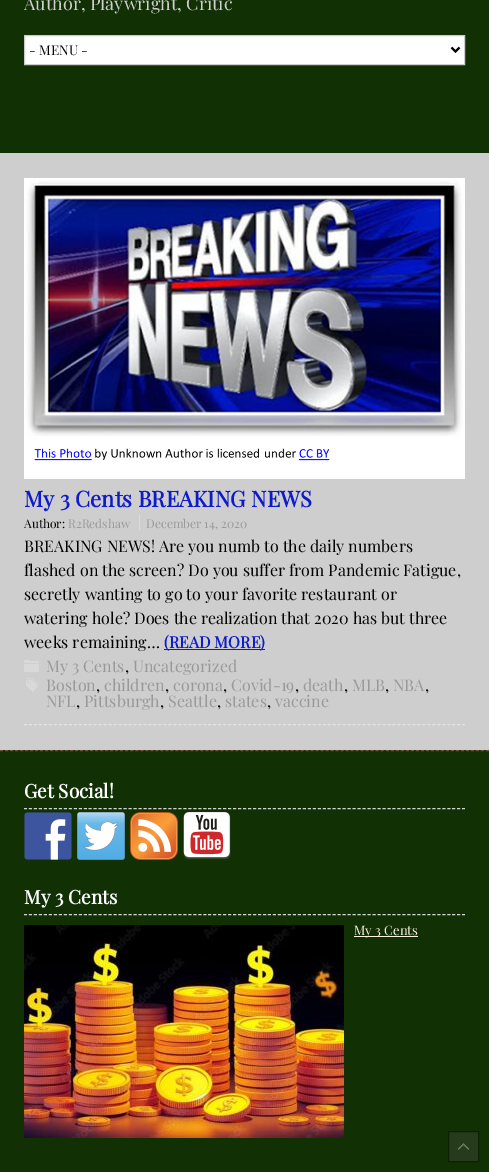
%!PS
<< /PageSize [489 1172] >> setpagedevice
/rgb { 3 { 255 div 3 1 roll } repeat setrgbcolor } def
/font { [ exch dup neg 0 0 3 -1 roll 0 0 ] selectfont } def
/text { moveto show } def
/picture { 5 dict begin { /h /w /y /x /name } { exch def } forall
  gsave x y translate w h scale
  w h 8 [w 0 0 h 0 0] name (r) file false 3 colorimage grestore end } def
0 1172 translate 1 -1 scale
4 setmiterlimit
206 206 206 rgb
0 0 489 1172 rectfill
17 48 4 rgb
0 0 489 153 rectfill
255 255 255 rgb
24.5 35.5 moveto 440 0 rlineto 0 29 rlineto -440 0 rlineto closepath gsave fill grestore
204 204 204 rgb
stroke
0 0 0 rgb
2 setlinewidth
451.5 47.5 moveto 4 4 rlineto 4 -4 rlineto stroke
227 227 227 rgb
1 setlinewidth
[3 1.98] 0 setdash
24 724.5 moveto 441 0 rlineto stroke
(img_01.rgb) 24 178 441 301 picture
219 219 219 rgb
139 515 1 16 rectfill
14 27 204 rgb
164 649 101 1 rectfill
(img_02.rgb) 24 660 15 12 picture
(img_03.rgb) 26 678 12 14 picture
17 48 4 rgb
0 750 489 422 rectfill
111 82 54 rgb
[3 2.01] 0 setdash
0 750.5 moveto 489 0 rlineto stroke
212 212 212 rgb
[3 1.98] 0 setdash
24 808.5 moveto 441 0 rlineto stroke
(img_04.rgb) 24 812 48 48 picture
(img_05.rgb) 77 812 48 48 picture
(img_06.rgb) 130 812 48 48 picture
(img_07.rgb) 183 812 48 48 picture
24 914.5 moveto 441 0 rlineto stroke
(img_08.rgb) 24 925 320 213 picture
255 242 230 rgb
354 936 64 1 rectfill
37 59 28 rgb
449 1132 29 29 rectfill
(img_09.rgb) 458 1143 11 7 picture
12 34 3 rgb
[] 0 setdash
448.5 1131.5 30 30 rectstroke
/PlayfairDisplay-Regular 18 font
206 206 206 rgb
(Author, Playwright, Critic) 24 10 text
/PlayfairDisplay-Regular 13.5 font
0 0 0 rgb
(- MENU -) 29 55 text
/PlayfairDisplay-Bold 22 font
14 27 204 rgb
(My 3 Cents BREAKING NEWS) 24 507 text
/PlayfairDisplay-Regular 12 font
0 0 0 rgb
(Author:) 24 528 text
153 153 153 rgb
(R2Redshaw) 68 528 text
(December 14, 2020) 146 528 text
/PlayfairDisplay-Regular 16 font
0 0 0 rgb
(BREAKING NEWS! Are you numb to the daily numbers) 24 552 text
(flashed on the screen? Do you suffer from Pandemic Fatigue,) 24 576 text
(secretly wanting to go to your favorite restaurant or) 24 600 text
(watering hole? Does the realization that 2020 has but three) 24 624 text
(weeks remaining…) 24 648 text
/PlayfairDisplay-Bold 16 font
14 27 204 rgb
(\(READ MORE\)) 164 648 text
/PlayfairDisplay-Regular 16 font
153 153 153 rgb
(My 3 Cents) 46 672 text
0 0 0 rgb
(,) 125 672 text
153 153 153 rgb
(Uncategorized) 133 672 text
(Boston) 46 691 text
0 0 0 rgb
(,) 96 691 text
153 153 153 rgb
(children) 104 691 text
0 0 0 rgb
(,) 165 691 text
153 153 153 rgb
(corona) 173 691 text
0 0 0 rgb
(,) 223 691 text
153 153 153 rgb
(Covid-19) 231 691 text
0 0 0 rgb
(,) 295 691 text
153 153 153 rgb
(death) 303 691 text
0 0 0 rgb
(,) 344 691 text
153 153 153 rgb
(MLB) 352 691 text
0 0 0 rgb
(,) 385 691 text
153 153 153 rgb
(NBA) 393 691 text
0 0 0 rgb
(,) 425 691 text
153 153 153 rgb
(NFL) 46 707 text
0 0 0 rgb
(,) 76 707 text
153 153 153 rgb
(Pittsburgh) 84 707 text
0 0 0 rgb
(,) 160 707 text
153 153 153 rgb
(Seattle) 168 707 text
0 0 0 rgb
(,) 217 707 text
153 153 153 rgb
(states) 225 707 text
0 0 0 rgb
(,) 267 707 text
153 153 153 rgb
(vaccine) 275 707 text
/PlayfairDisplay-Bold 19 font
255 255 255 rgb
(Get Social!) 24 798 text
(My 3 Cents) 24 904 text
/PlayfairDisplay-Regular 13 font
255 242 230 rgb
(My 3 Cents) 354 935 text
showpage
